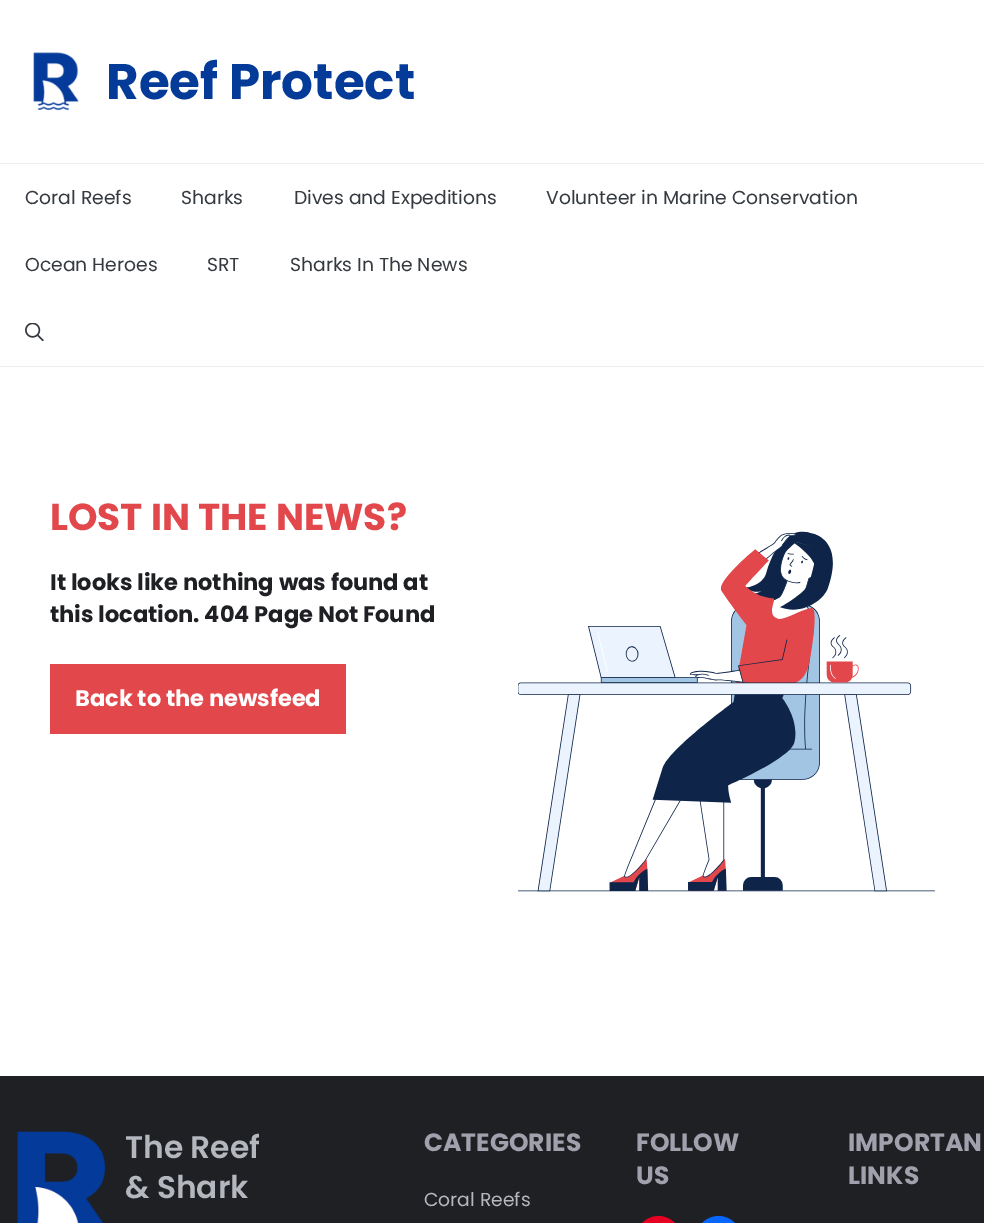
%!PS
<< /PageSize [984 1223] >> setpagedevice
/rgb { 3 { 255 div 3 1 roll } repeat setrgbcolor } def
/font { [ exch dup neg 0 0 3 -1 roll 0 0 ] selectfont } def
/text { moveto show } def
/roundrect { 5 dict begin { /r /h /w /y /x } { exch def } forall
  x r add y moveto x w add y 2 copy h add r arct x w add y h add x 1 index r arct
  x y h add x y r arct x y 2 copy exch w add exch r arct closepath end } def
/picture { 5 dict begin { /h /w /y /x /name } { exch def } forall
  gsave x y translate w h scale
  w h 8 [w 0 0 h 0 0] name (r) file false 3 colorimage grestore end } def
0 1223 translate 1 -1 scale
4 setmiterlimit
255 255 255 rgb
0 0 984 1223 rectfill
(img_01.rgb) 33 52 46 59 picture
232 237 240 rgb
0 163 984 1 rectfill
0 366 984 1 rectfill
(img_02.rgb) 25 323 19 18 picture
226 71 75 rgb
50 664 296 70 rectfill
(img_03.rgb) 518 531 417 361 picture
31 32 36 rgb
0 1076 984 147 rectfill
(img_04.rgb) 17 1131 88 92 picture
230 1 34 rgb
636 1216 45 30 22.5 roundrect fill
8 102 255 rgb
696 1216 45 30 22.5 roundrect fill
/Poppins-Bold 50 font
4 59 152 rgb
(Reef Protect) 106 99 text
/Poppins-Regular 18.75 font
52 58 64 rgb
(Coral Reefs) 25 204 text
(Sharks) 181 204 text
(Dives and Expeditions) 294 204 text
(Volunteer in Marine Conservation) 546 204 text
(Ocean Heroes) 25 271 text
(SRT) 207 271 text
(Sharks In The News) 290 271 text
/Poppins-Bold 37.5 font
226 71 75 rgb
(LOST IN THE NEWS?) 50 530 text
/Poppins-Bold 22.5 font
31 32 36 rgb
(It looks like nothing was found at) 50 590 text
(this location. 404 Page Not Found) 50 622 text
255 255 255 rgb
(Back to the newsfeed) 75 706 text
/Poppins-SemiBold 31.25 font
181 183 191 rgb
(The Reef) 125 1158 text
(& Shark) 125 1198 text
/Poppins-Bold 25 font
160 161 173 rgb
(CATEGORIES) 424 1151 text
/Poppins-Regular 18.75 font
181 183 191 rgb
(Coral Reefs) 424 1206 text
/Poppins-Bold 25 font
160 161 173 rgb
(FOLLOW) 636 1151 text
(US) 636 1184 text
(IMPORTAN) 848 1151 text
(LINKS) 848 1184 text
showpage
